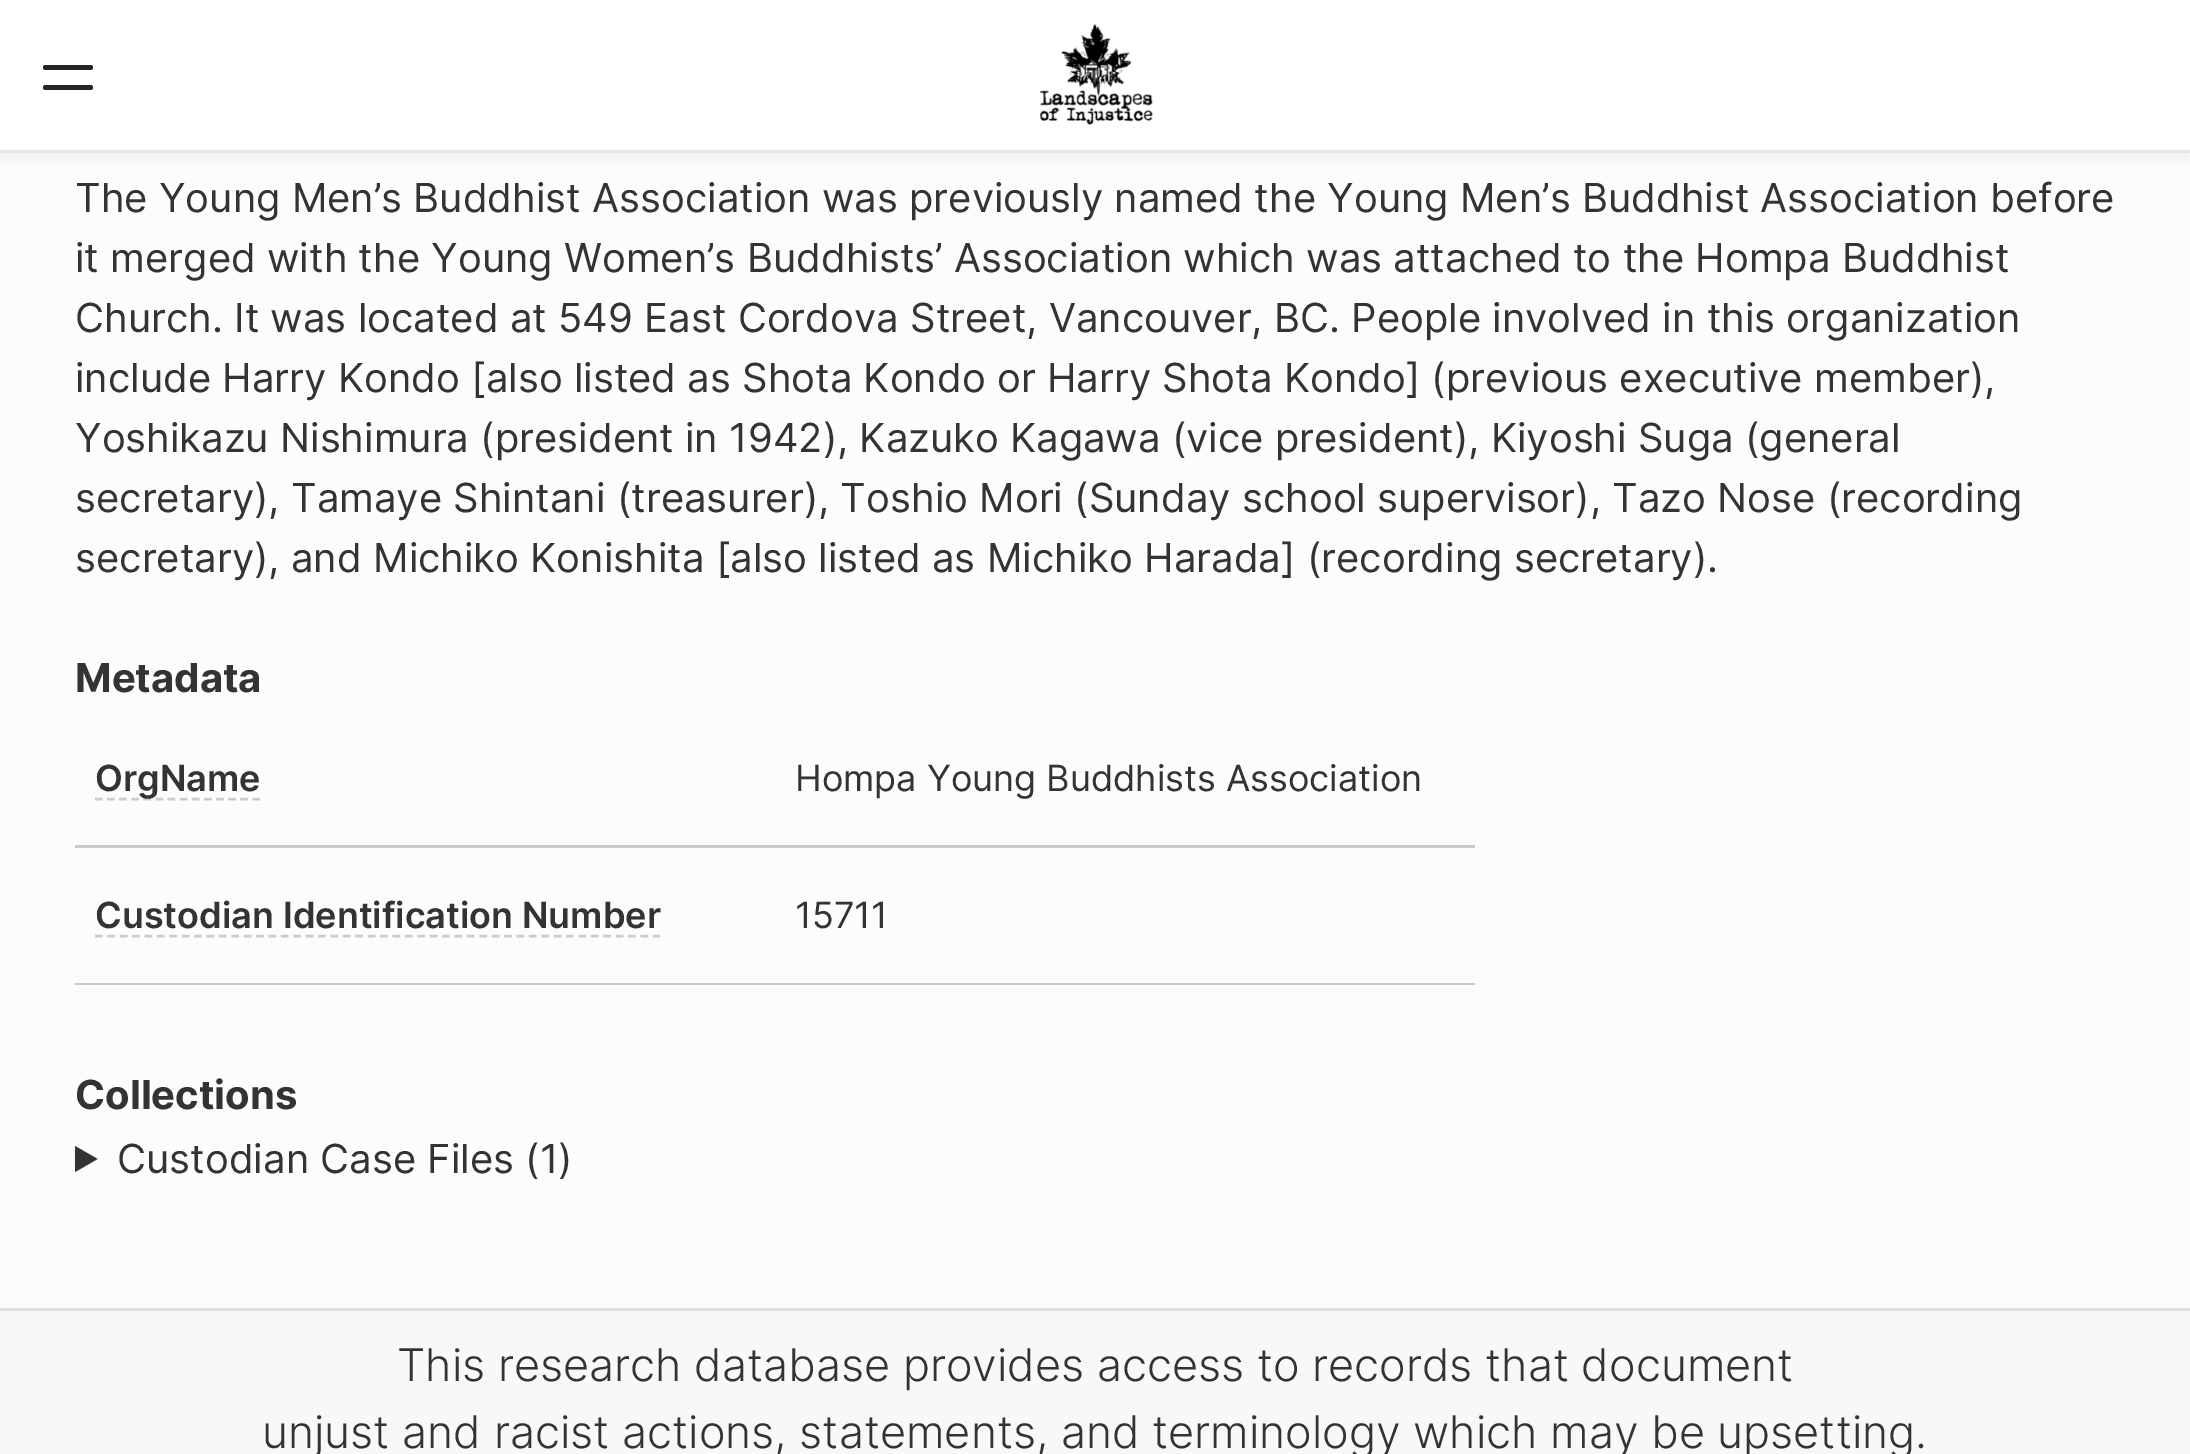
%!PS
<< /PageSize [2190 1454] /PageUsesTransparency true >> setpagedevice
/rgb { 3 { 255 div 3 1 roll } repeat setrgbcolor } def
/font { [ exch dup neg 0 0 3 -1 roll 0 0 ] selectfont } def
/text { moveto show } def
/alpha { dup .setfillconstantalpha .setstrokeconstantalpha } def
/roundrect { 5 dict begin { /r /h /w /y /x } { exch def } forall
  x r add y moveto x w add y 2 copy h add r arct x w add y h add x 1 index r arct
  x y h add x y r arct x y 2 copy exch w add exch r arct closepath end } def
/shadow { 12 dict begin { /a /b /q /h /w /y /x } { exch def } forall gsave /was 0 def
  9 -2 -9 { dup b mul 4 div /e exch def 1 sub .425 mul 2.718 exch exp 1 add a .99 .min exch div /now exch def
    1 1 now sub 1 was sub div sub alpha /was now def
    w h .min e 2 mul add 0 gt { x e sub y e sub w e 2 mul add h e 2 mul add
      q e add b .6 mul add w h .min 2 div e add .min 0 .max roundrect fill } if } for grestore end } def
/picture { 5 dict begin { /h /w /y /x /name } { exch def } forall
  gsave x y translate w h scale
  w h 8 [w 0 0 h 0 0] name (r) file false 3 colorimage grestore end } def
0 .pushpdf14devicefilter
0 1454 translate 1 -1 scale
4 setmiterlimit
252 252 252 rgb
0 0 2190 1454 rectfill
0 0 0 rgb
0 5 2190 153 0 6 0.05 shadow
255 255 255 rgb
0 0 2190 150 rectfill
230 230 230 rgb
0 150 2190 3 rectfill
38 38 38 rgb
43 65 50 5 2.5 roundrect fill
43 85 50 5 2.5 roundrect fill
(img_01.rgb) 1040 24 113 101 picture
204 204 204 rgb
2.5 setlinewidth
[7.5 4.62] 0 setdash
95 799 moveto 165 0 rlineto stroke
202 202 202 rgb
75 845 1400 3 rectfill
204 204 204 rgb
[7.5 4.9] 0 setdash
95 936 moveto 565 0 rlineto stroke
202 202 202 rgb
75 983 1400 2 rectfill
51 51 51 rgb
75 1146 moveto 22.5 13 rlineto -22.5 13 rlineto closepath fill
248 248 248 rgb
0 1311 2190 143 rectfill
223 223 223 rgb
0 1308 2190 3 rectfill
/Inter-Regular 40 font
51 51 51 rgb
(The Young Men’s Buddhist Association was previously named the Young Men’s Buddhist Association before) 75 212 text
(it merged with the Young Women’s Buddhists’ Association which was attached to the Hompa Buddhist) 75 272 text
(Church. It was located at 549 East Cordova Street, Vancouver, BC. People involved in this organization) 75 332 text
(include Harry Kondo [also listed as Shota Kondo or Harry Shota Kondo] \(previous executive member\),) 75 392 text
(Yoshikazu Nishimura \(president in 1942\), Kazuko Kagawa \(vice president\), Kiyoshi Suga \(general) 75 452 text
(secretary\), Tamaye Shintani \(treasurer\), Toshio Mori \(Sunday school supervisor\), Tazo Nose \(recording) 75 512 text
(secretary\), and Michiko Konishita [also listed as Michiko Harada] \(recording secretary\).) 75 572 text
/Inter-Bold 40 font
(Metadata) 75 692 text
/Inter-SemiBold 36 font
(OrgName) 95 791 text
/Inter-Regular 36 font
(Hompa Young Buddhists Association) 795 791 text
/Inter-SemiBold 36 font
(Custodian Identification Number) 95 928 text
/Inter-Regular 36 font
(15711) 795 928 text
/Inter-Bold 40 font
(Collections) 75 1109 text
/Inter-Regular 40 font
(Custodian Case Files \(1\)) 117 1173 text
/Inter-Light 45 font
(This research database provides access to records that document) 397 1381 text
(unjust and racist actions, statements, and terminology which may be upsetting.) 262 1448 text
.poppdf14devicefilter showpage
